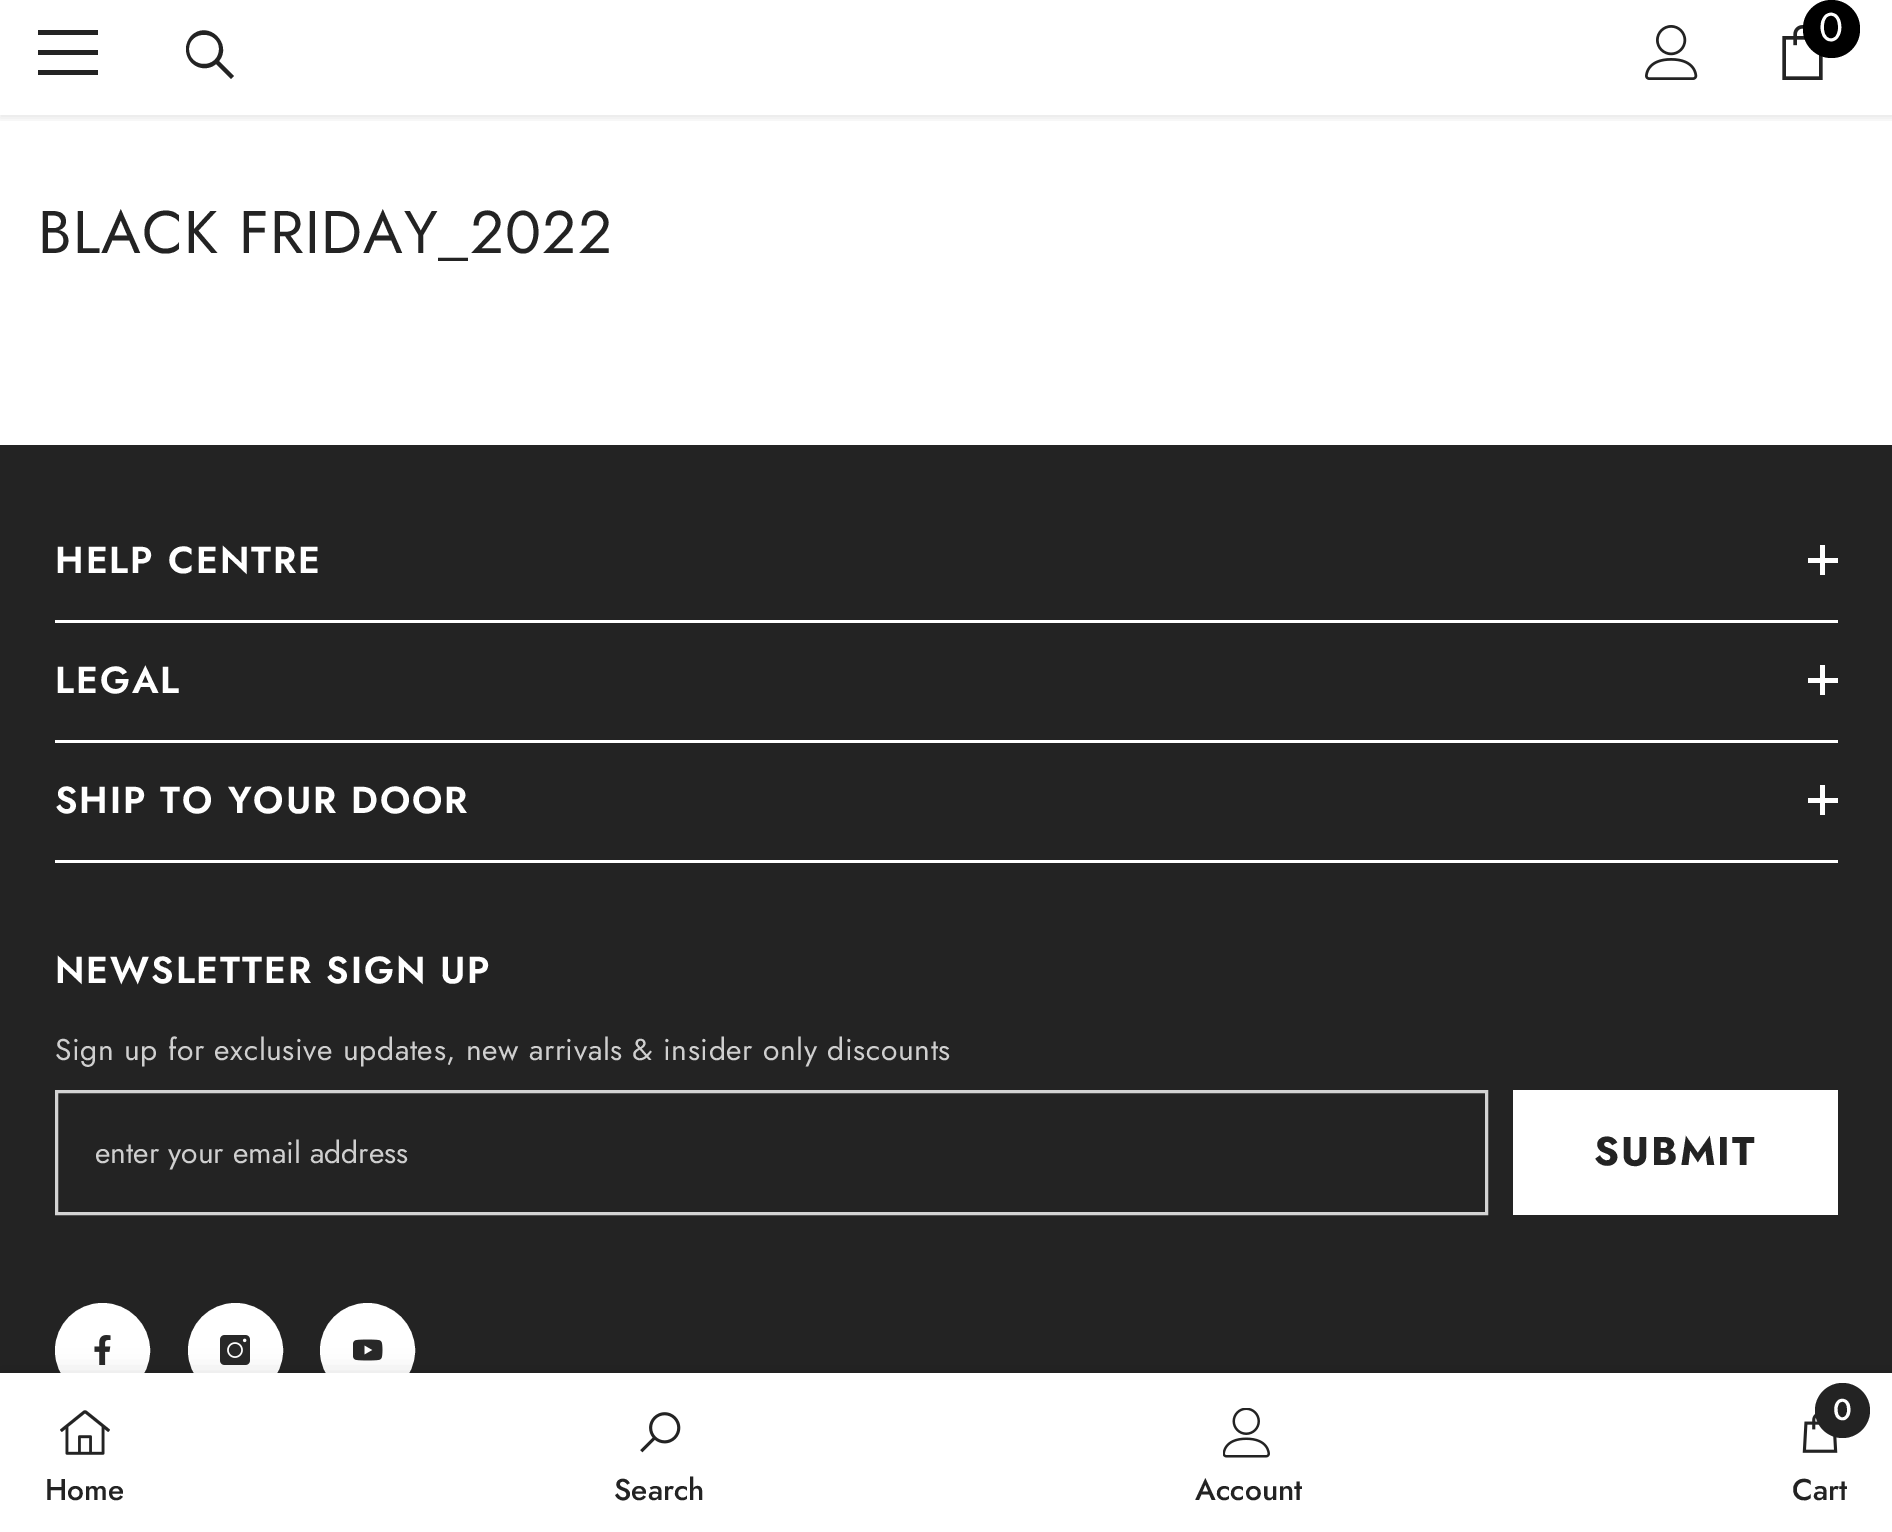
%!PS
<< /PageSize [1892 1532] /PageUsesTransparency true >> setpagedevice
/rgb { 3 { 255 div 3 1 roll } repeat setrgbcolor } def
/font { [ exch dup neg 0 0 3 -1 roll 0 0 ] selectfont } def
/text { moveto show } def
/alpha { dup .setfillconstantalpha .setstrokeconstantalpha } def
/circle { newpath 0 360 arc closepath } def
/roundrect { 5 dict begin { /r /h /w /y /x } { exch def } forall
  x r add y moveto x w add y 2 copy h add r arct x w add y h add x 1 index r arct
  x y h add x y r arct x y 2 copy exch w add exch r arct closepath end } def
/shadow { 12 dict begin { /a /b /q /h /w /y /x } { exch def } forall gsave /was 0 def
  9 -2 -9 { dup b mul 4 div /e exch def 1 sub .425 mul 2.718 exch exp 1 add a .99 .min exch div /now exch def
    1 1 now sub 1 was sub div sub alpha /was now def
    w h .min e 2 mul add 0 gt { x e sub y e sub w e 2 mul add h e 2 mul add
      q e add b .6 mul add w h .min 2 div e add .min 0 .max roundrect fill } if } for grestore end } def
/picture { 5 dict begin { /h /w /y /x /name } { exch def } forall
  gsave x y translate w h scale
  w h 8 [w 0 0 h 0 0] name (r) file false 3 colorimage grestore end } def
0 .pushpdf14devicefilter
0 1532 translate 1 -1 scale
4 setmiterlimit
255 255 255 rgb
0 0 1892 1532 rectfill
gsave
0 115 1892 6 rectclip
0 0 0 rgb
0 -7 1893 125 0 4 0.1 shadow
grestore
35 35 35 rgb
38 50 60 5 rectfill
38 30 60 5 rectfill
38 70 60 5 rectfill
186 49 moveto 0 16 18 25 30 15 rcurveto 15 15 rlineto 3 -3 rlineto -15 -15 rlineto 14 -17 -11 -42 -28 -25 rcurveto -3 4 -5 8 -5 13 rcurveto closepath 189 49 moveto 0 -19 30 -19 30 0 rcurveto 0 20 -30 20 -30 0 rcurveto closepath fill
(img_01.rgb) 1645 25 53 55 picture
(img_02.rgb) 1782 25 41 55 picture
0 0 0 rgb
1803 0 57 58 28.5 roundrect fill
35 35 35 rgb
0 445 1892 928 rectfill
255 255 255 rgb
55 620 1783 3 rectfill
1820 545 5 30 rectfill
1808 558 30 5 rectfill
55 740 1783 3 rectfill
1820 665 5 30 rectfill
1808 678 30 5 rectfill
55 860 1783 3 rectfill
1820 785 5 30 rectfill
1808 798 30 5 rectfill
211 211 211 rgb
3 setlinewidth
56.5 1091.5 1430 122 rectstroke
255 255 255 rgb
1513 1090 325 125 rectfill
102.5 1350.5 46 circle gsave fill grestore
stroke
(img_03.rgb) 94 1335 17 30 picture
235.5 1350.5 46 circle gsave fill grestore
stroke
(img_04.rgb) 220 1335 30 30 picture
367.5 1350.5 46 circle gsave fill grestore
stroke
(img_05.rgb) 353 1339 30 22 picture
0 0 0 rgb
0 1373 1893 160 0 11 0.12 shadow
255 255 255 rgb
0 1373 1892 159 rectfill
(img_06.rgb) 60 1410 50 45 picture
(img_07.rgb) 640 1412 41 41 picture
(img_08.rgb) 1223 1408 47 50 picture
(img_09.rgb) 1802 1413 36 40 picture
35 35 35 rgb
1842.5 1410.5 27.5 circle fill
/Jost-Regular 40 font
255 255 255 rgb
(0) 1819 41 text
/Jost-Regular 60 font
35 35 35 rgb
38 253 moveto 1.25 0 (BLACK FRIDAY_2022) ashow
/Jost-SemiBold 37.5 font
255 255 255 rgb
55 573 moveto 1.9 0 (HELP CENTRE) ashow
55 693 moveto 1.9 0 (LEGAL) ashow
55 813 moveto 1.9 0 (SHIP TO YOUR DOOR) ashow
55 983 moveto 1.9 0 (NEWSLETTER SIGN UP) ashow
/Jost-Regular 30 font
207 207 207 rgb
55 1060 moveto 0.6 0 (Sign up for exclusive updates, new arrivals & insider only discounts) ashow
(enter your email address) 95 1163 text
/Jost-Bold 40 font
35 35 35 rgb
1594 1165 moveto 2 0 (SUBMIT) ashow
/Jost-Medium 30 font
(Home) 45 1500 text
(Search) 614 1500 text
(Account) 1195 1500 text
255 255 255 rgb
(0) 1833 1420 text
35 35 35 rgb
(Cart) 1792 1500 text
.poppdf14devicefilter showpage
